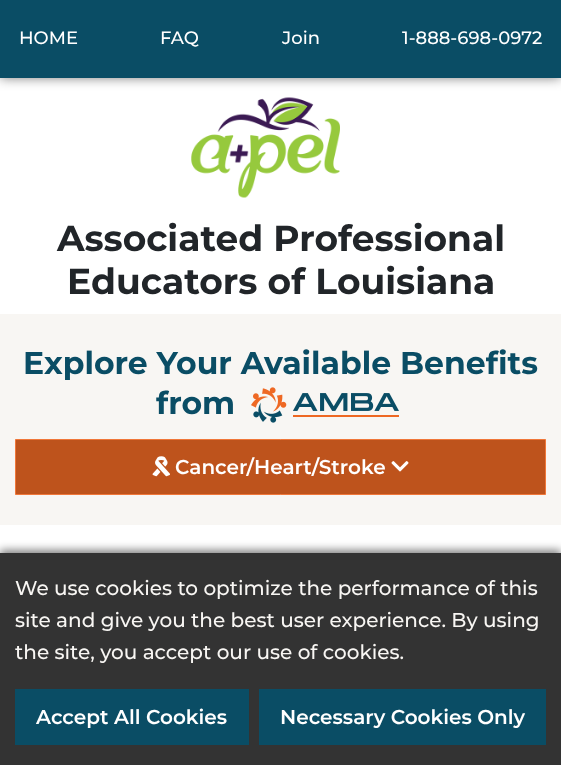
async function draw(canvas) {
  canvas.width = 561;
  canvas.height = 765;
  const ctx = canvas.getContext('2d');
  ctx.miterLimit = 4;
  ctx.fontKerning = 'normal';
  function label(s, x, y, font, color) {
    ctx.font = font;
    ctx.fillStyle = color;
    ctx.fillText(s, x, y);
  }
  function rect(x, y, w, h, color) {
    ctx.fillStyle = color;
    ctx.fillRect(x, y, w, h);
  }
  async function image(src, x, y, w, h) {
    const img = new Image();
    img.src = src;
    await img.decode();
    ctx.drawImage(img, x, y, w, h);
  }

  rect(0, 0, 561, 765, '#fff');
  ctx.fillStyle = '#00000080';
  ctx.filter = 'blur(6px)';
  ctx.beginPath();
  ctx.rect(0, 0, 561, 78);
  ctx.fill();
  ctx.filter = 'none';
  rect(0, 0, 561, 78, '#0a4d65');
  label('HOME', 19, 44, '500 18px Montserrat', '#fff');
  label('FAQ', 160, 44, '500 18px Montserrat', '#fff');
  label('Join', 282, 44, '500 18px Montserrat', '#fff');
  label('1-888-698-0972', 402, 44, '500 18px Montserrat', '#fff');
  await image('assets/img1.png', 191, 97, 149, 101);
  label('Associated Professional', 57, 251, 'bold 36px Montserrat', '#212529');
  label('Educators of Louisiana', 67, 294, 'bold 36px Montserrat', '#212529');
  rect(0, 314, 561, 211, '#f8f6f3');
  label('Explore Your Available Benefits', 23, 374, 'bold 31.5px Montserrat', '#0a4d65');
  label('from', 156, 414, 'bold 31.5px Montserrat', '#0a4d65');
  await image('assets/img2.png', 251, 387, 148, 36);
  ctx.fillStyle = '#be531c';
  ctx.beginPath();
  ctx.rect(15.5, 439.5, 530, 55);
  ctx.fill();
  ctx.strokeStyle = '#f07739';
  ctx.stroke();
  await image('assets/img3.png', 152, 456, 18, 21);
  label('Cancer/Heart/Stroke', 175, 474, '600 20px Montserrat', '#fff');
  await image('assets/img4.png', 391, 461, 18, 11);
  ctx.fillStyle = '#00000080';
  ctx.filter = 'blur(4px)';
  ctx.beginPath();
  ctx.rect(0, 550, 561, 213);
  ctx.fill();
  ctx.filter = 'none';
  rect(0, 553, 561, 212, '#333');
  label('We use cookies to optimize the performance of this', 15, 595, '500 20px Montserrat', '#f8f6f3');
  label('site and give you the best user experience. By using', 15, 627, '500 20px Montserrat', '#f8f6f3');
  label('the site, you accept our use of cookies.', 15, 659, '500 20px Montserrat', '#f8f6f3');
  rect(15, 689, 234, 56, '#0a4d65');
  label('Accept All Cookies', 36, 724, '600 20px Montserrat', '#fff');
  rect(259, 689, 287, 56, '#0a4d65');
  label('Necessary Cookies Only', 280, 724, '600 20px Montserrat', '#fff');
}

draw(document.querySelector('canvas'));
